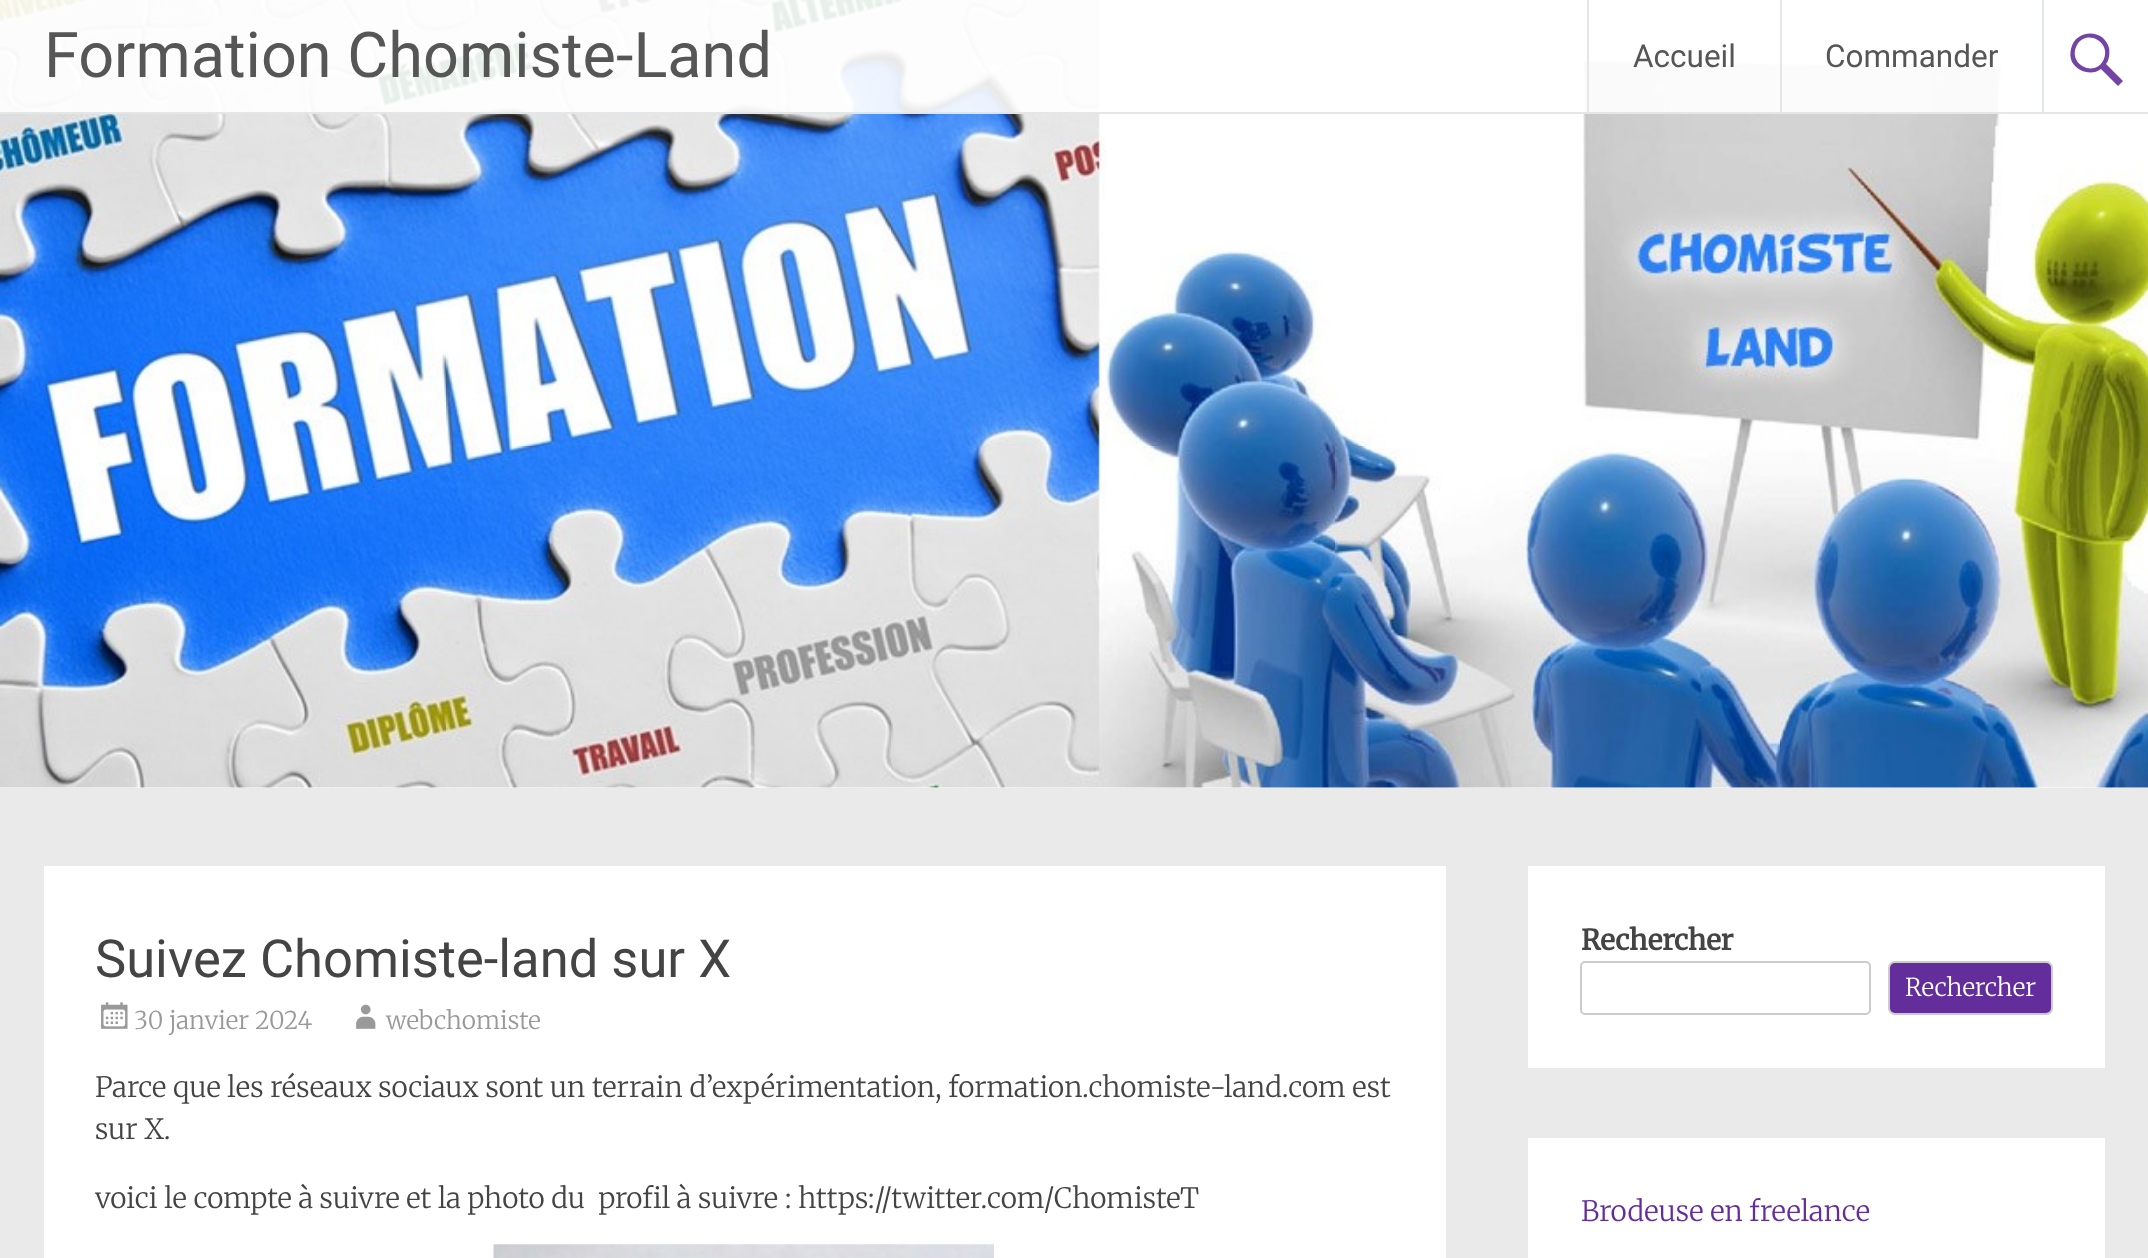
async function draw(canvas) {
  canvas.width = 2148;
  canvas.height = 1258;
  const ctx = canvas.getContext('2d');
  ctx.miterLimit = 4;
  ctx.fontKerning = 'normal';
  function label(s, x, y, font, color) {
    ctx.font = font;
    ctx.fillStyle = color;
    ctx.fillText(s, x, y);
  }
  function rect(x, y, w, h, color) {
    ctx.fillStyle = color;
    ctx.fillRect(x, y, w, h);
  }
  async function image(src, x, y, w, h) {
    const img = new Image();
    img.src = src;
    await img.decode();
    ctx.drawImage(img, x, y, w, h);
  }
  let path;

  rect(0, 0, 2148, 1258, '#fff');
  await image('assets/img1.png', 0, 0, 2148, 788);
  rect(0, 0, 2003, 114, '#ffffffe6');
  rect(0, 112, 2148, 2, '#e1e4e6e6');
  label('Formation Chomiste-Land', 44, 77, '63px Roboto', '#565656');
  rect(1587, 0, 2, 112, '#e1e4e6e6');
  label('Accueil', 1633, 67, '31.5px Roboto', '#565656');
  rect(1780, 0, 2, 112, '#e1e4e6e6');
  label('Commander', 1825, 67, '31.5px Roboto', '#565656');
  rect(2042, 0, 2, 112, '#e4e7e9');
  ctx.fillStyle = '#7343a5';
  path = new Path2D('M2123 81L2118 86L2101 69C2092 76 2078 72 2072 62C2070 58 2070 53 2071 49C2075 29 2104 28 2109 48C2110 54 2109 60 2106 64ZM2077 45C2067 63 2093 78 2103 61C2113 43 2087 28 2077 45Z');
  ctx.fill(path);
  rect(0, 788, 2148, 470, '#eaeaea');
  rect(44, 866, 1402, 392, '#fff');
  label('Suivez Chomiste-land sur X', 95, 977, '52.5px Roboto', '#444');
  await image('assets/img2.png', 101, 1002, 27, 27);
  label('30 janvier 2024', 134, 1029, '300 24.5px Merriweather', '#999');
  await image('assets/img3.png', 356, 1004, 20, 25);
  label('webchomiste', 386, 1029, '300 24.5px Merriweather', '#999');
  label('Parce que les réseaux sociaux sont un terrain d’expérimentation, formation.chomiste-land.com est', 95, 1097, '300 28px Merriweather', '#444');
  label('sur X.', 95, 1139, '300 28px Merriweather', '#444');
  label('voici le compte à suivre et la photo du  profil à suivre : https://twitter.com/ChomisteT', 95, 1208, '300 28px Merriweather', '#444');
  await image('assets/img4.png', 493, 1244, 501, 14);
  rect(1528, 866, 577, 202, '#fff');
  label('Rechercher', 1581, 950, 'bold 28px Merriweather', '#444');
  ctx.beginPath();
  ctx.roundRect(1581, 962, 289, 52, 4);
  ctx.strokeStyle = '#ccc';
  ctx.lineWidth = 2;
  ctx.stroke();
  ctx.fillStyle = '#632e9b';
  ctx.beginPath();
  ctx.roundRect(1889, 962, 163, 52, 6);
  ctx.fill();
  ctx.stroke();
  label('Rechercher', 1905, 996, '300 24.5px Merriweather', '#fff');
  rect(1528, 1138, 577, 120, '#fff');
  label('Brodeuse en freelance', 1581, 1221, '300 28px Merriweather', '#632e9b');
}

draw(document.querySelector('canvas'));
